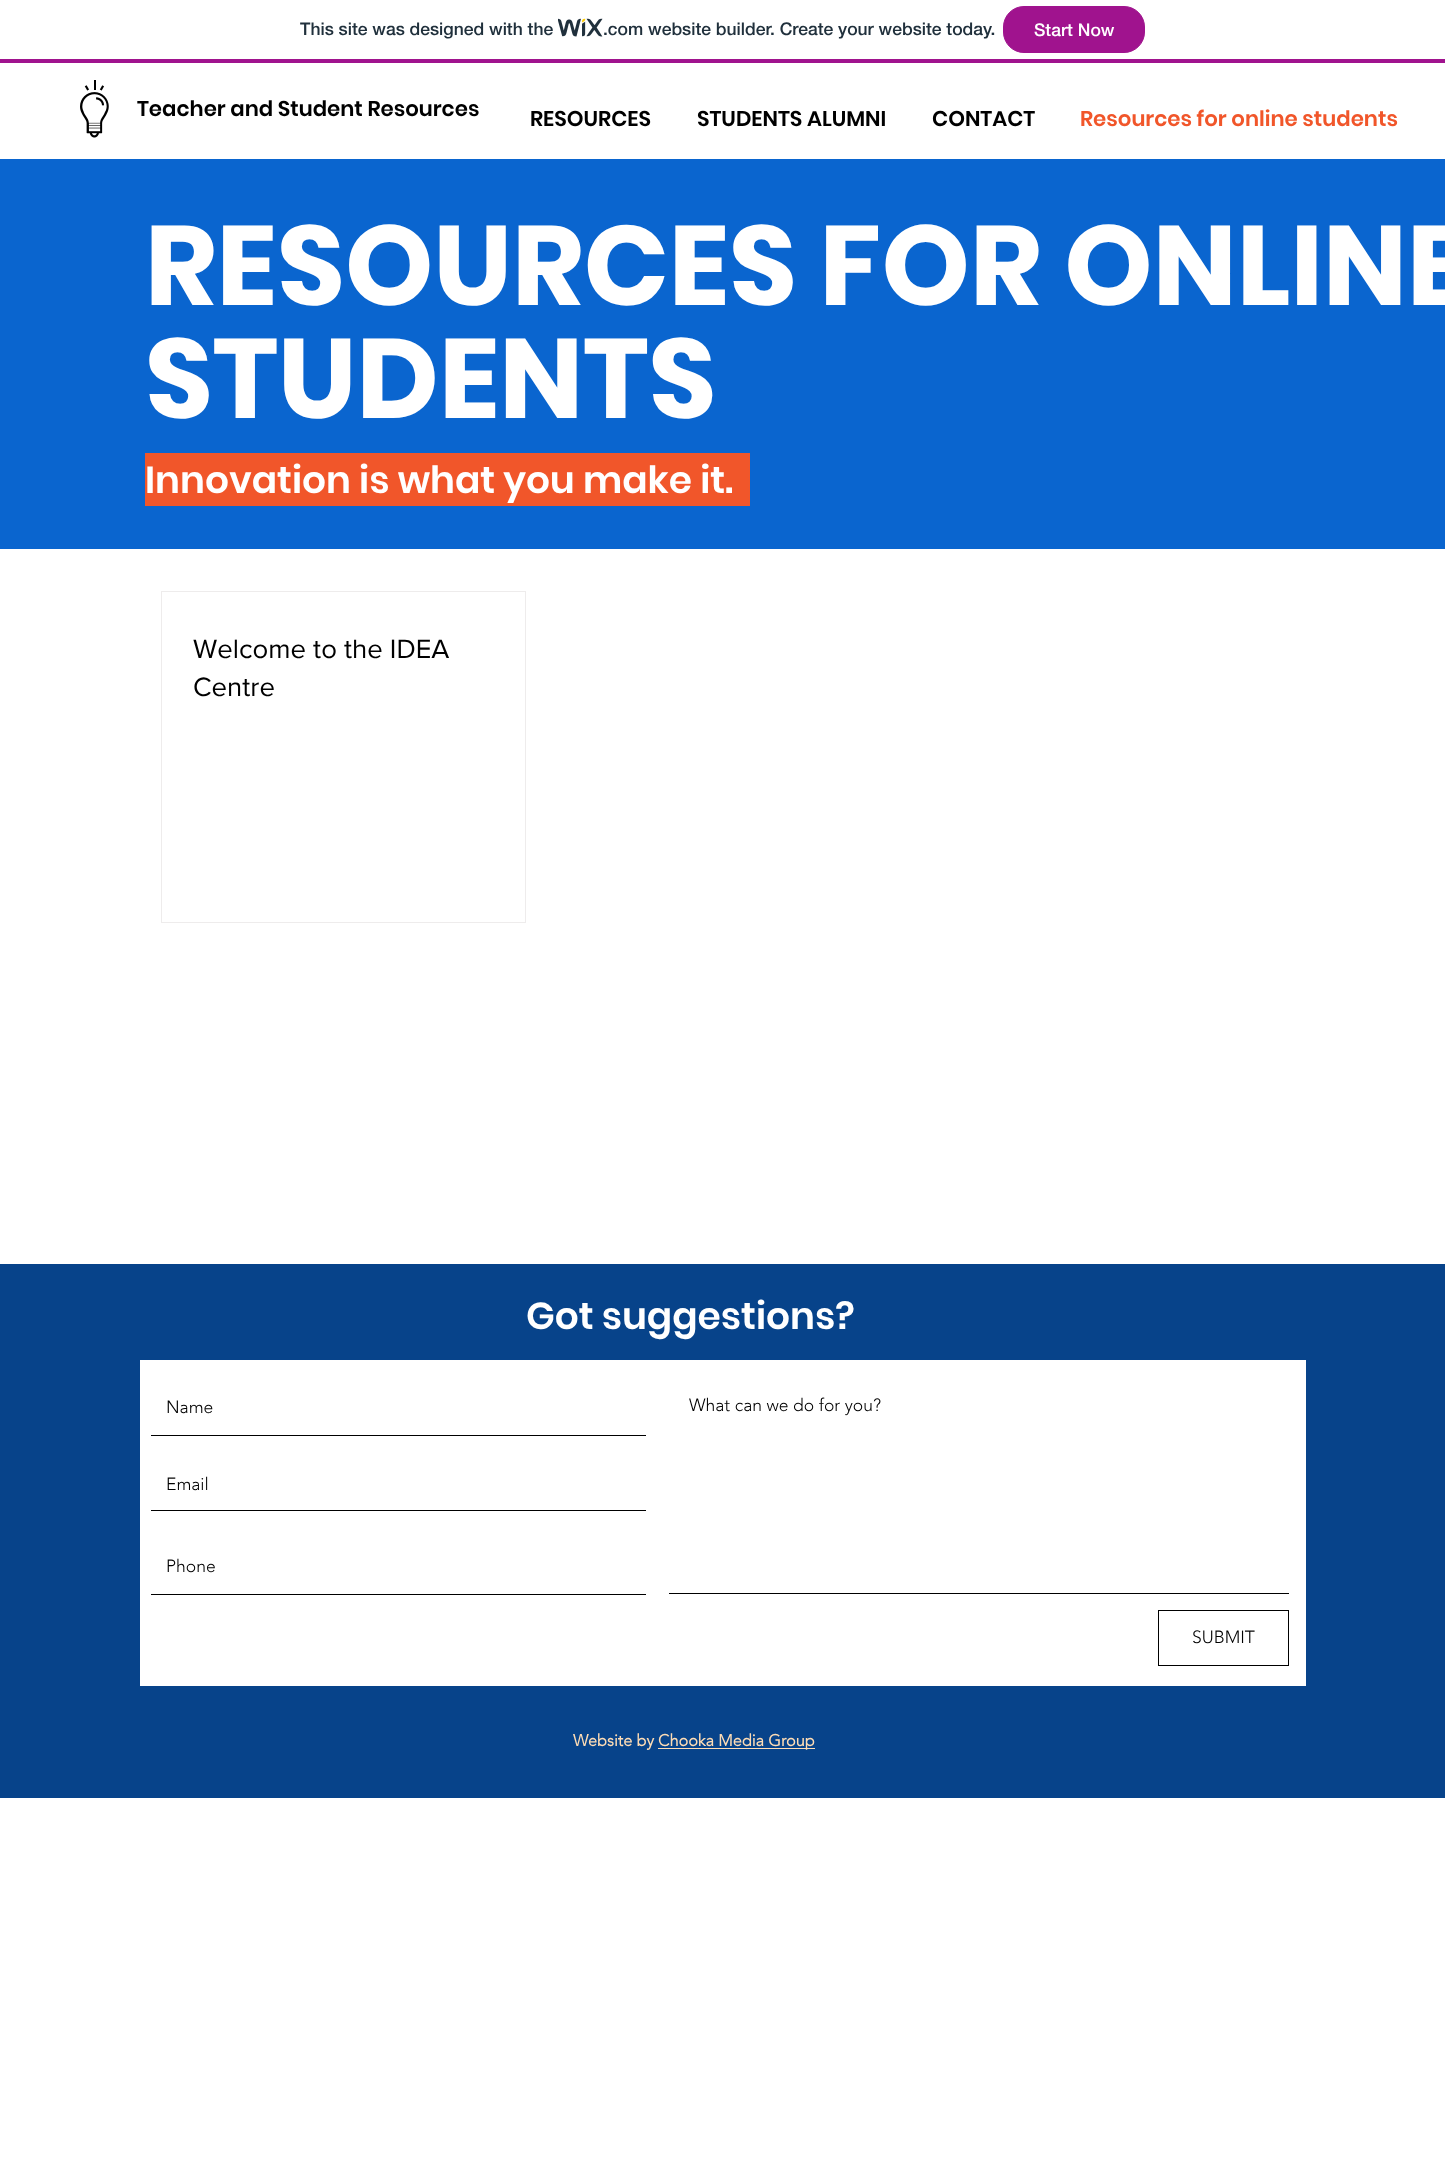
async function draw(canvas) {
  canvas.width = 1445;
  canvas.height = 2174;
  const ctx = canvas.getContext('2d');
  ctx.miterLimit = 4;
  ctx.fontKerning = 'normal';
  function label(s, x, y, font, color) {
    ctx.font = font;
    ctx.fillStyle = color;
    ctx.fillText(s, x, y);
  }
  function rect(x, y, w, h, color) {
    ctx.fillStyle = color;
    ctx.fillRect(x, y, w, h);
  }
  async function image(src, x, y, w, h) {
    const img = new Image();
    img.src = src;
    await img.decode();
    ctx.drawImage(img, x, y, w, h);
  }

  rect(0, 0, 1445, 2174, '#fff');
  rect(0, 59, 1445, 4, '#a0138e');
  label('This site was designed with the', 300, 35, '500 17.5px "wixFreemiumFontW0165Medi"', '#20303c');
  await image('assets/img1.png', 558, 18, 45, 19);
  label('.com website builder. Create your website today.', 603, 35, '500 17.5px "wixFreemiumFontW0165Medi"', '#20303c');
  ctx.fillStyle = '#a0138e';
  ctx.beginPath();
  ctx.roundRect(1003.5, 6.5, 141, 46, 20.5);
  ctx.fill();
  ctx.strokeStyle = '#a0138e';
  ctx.stroke();
  label('Start Now', 1034, 36, '500 17.5px "wixFreemiumFontW0165Medi"', '#fff');
  await image('assets/img2.png', 80, 80, 29, 58);
  label('Teacher and Student Resources', 137, 116, '600 21.25px Poppins', '#000');
  label('RESOURCES', 530, 126, '600 21.25px Poppins', '#000');
  label('STUDENTS ALUMNI', 697, 126, '600 21.25px Poppins', '#000');
  label('CONTACT', 932, 126, '600 21.25px Poppins', '#000');
  label('Resources for online students', 1080, 126, '600 21.25px Poppins', '#f1562a');
  rect(0, 159, 1445, 390, '#0a65cf');
  label('RESOURCES FOR ONLINE', 145, 305, 'bold 112.5px Poppins', '#fff');
  label('STUDENTS', 145, 418, 'bold 112.5px Poppins', '#fff');
  rect(145, 453, 605, 53, '#f1562a');
  label('Innovation is what you make it.', 145, 493, '600 37.5px Poppins', '#fff');
  ctx.strokeStyle = '#eeecec';
  ctx.strokeRect(161.5, 591.5, 364, 331);
  label('Welcome to the IDEA', 193, 658, '27.5px "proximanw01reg"', '#000');
  label('Centre', 193, 696, '27.5px "proximanw01reg"', '#000');
  rect(0, 1264, 1445, 534, '#07438a');
  label('Got suggestions?', 526, 1329, '600 37.5px Poppins', '#fff');
  rect(140, 1360, 1166, 326, '#fff');
  rect(151, 1435, 495, 1, '#000');
  label('Name', 166, 1413, '300 17.5px "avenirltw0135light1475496"', '#000');
  rect(669, 1593, 620, 1, '#000');
  label('What can we do for you?', 689, 1411, '300 17.5px "avenirltw0135light1475496"', '#000');
  rect(151, 1510, 495, 1, '#000');
  label('Email', 166, 1490, '300 17.5px "avenirltw0135light1475496"', '#000');
  rect(151, 1594, 495, 1, '#000');
  label('Phone', 166, 1572, '300 17.5px "avenirltw0135light1475496"', '#000');
  ctx.strokeStyle = '#000';
  ctx.strokeRect(1158.5, 1610.5, 130, 55);
  label('SUBMIT', 1192, 1643, '300 17.5px "avenirltw0135light1475496"', '#000');
  label('Website by', 573, 1746, 'bold 16.25px "avenirltw0135light1475496"', '#fddcb5');
  rect(658, 1748, 157, 1, '#fddcb5');
  label('Chooka Media Group', 658, 1746, 'bold 16.25px "avenirltw0135light1475496"', '#fddcb5');
}

draw(document.querySelector('canvas'));
